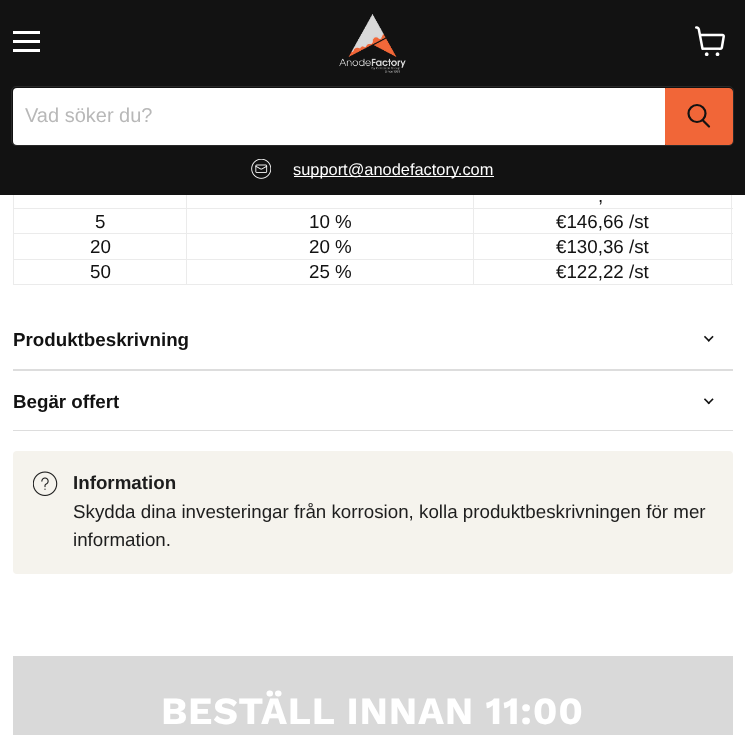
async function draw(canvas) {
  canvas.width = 745;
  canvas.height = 735;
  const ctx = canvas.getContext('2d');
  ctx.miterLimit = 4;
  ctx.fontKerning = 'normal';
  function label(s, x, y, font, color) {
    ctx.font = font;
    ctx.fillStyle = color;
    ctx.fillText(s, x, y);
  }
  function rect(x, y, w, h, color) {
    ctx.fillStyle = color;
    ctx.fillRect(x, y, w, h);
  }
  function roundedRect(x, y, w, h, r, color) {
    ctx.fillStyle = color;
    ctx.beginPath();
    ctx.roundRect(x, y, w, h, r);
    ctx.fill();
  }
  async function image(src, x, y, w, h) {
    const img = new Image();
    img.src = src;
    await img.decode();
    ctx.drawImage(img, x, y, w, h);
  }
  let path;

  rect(0, 0, 745, 735, '#fff');
  rect(0, 0, 745, 195, '#121212');
  rect(13, 31, 27, 3, '#fff');
  rect(13, 40, 27, 3, '#fff');
  rect(13, 49, 27, 3, '#fff');
  await image('assets/img1.png', 695, 26, 30, 30);
  await image('assets/img2.png', 339, 14, 67, 59);
  ctx.beginPath();
  ctx.roundRect(11.5, 86.5, 722, 59, 4.5);
  ctx.strokeStyle = '#80808033';
  ctx.stroke();
  ctx.beginPath();
  ctx.roundRect(13, 88, 652, 57, [4, 0, 0, 4]);
  ctx.fill();
  label('Vad söker du?', 25, 122, '20px Liberation Sans', '#b8b8b8');
  ctx.fillStyle = '#f16638';
  ctx.beginPath();
  ctx.roundRect(665.5, 88.5, 67, 56, [0, 3.5, 3.5, 0]);
  ctx.fill();
  ctx.strokeStyle = '#f16638';
  ctx.stroke();
  path = new Path2D('M709 126.5L703 120.5');
  ctx.strokeStyle = '#121212';
  ctx.lineWidth = 2.2;
  ctx.lineCap = 'round';
  ctx.stroke(path);
  ctx.beginPath();
  ctx.arc(697, 113.5, 8.5, 0, 2 * Math.PI);
  ctx.stroke();
  await image('assets/img3.png', 251, 159, 20, 20);
  rect(294, 176, 200, 1, '#fff');
  label('support@anodefactory.com', 293, 175, '16.4px Liberation Sans', '#fff');
  rect(473, 208, 260, 1, '#ebebeb');
  rect(473, 233, 260, 1, '#ebebeb');
  rect(473, 259, 260, 1, '#ebebeb');
  rect(731, 259, 1, 26, '#ebebeb');
  rect(473, 284, 260, 1, '#ebebeb');
  rect(473, 259, 1, 26, '#ebebeb');
  rect(186, 259, 288, 1, '#ebebeb');
  rect(473, 233, 1, 27, '#ebebeb');
  rect(186, 233, 288, 1, '#ebebeb');
  rect(473, 208, 1, 26, '#ebebeb');
  rect(186, 208, 288, 1, '#ebebeb');
  rect(186, 284, 288, 1, '#ebebeb');
  rect(186, 259, 1, 26, '#ebebeb');
  rect(13, 259, 175, 1, '#ebebeb');
  rect(186, 233, 1, 27, '#ebebeb');
  rect(13, 233, 175, 1, '#ebebeb');
  rect(186, 208, 1, 26, '#ebebeb');
  rect(13, 208, 175, 1, '#ebebeb');
  rect(186, 195, 1, 14, '#ebebeb');
  rect(473, 195, 1, 14, '#ebebeb');
  label(',', 598, 202, '18.75px Liberation Sans', '#121212');
  rect(13, 284, 175, 1, '#ebebeb');
  rect(13, 259, 1, 26, '#ebebeb');
  rect(13, 233, 1, 27, '#ebebeb');
  rect(13, 195, 1, 39, '#ebebeb');
  label('5', 95, 228, '18.75px Liberation Sans', '#121212');
  label('10 %', 309, 228, '18.75px Liberation Sans', '#121212');
  rect(731, 233, 1, 27, '#ebebeb');
  rect(731, 195, 1, 39, '#ebebeb');
  label('€146,66 /st', 556, 228, '18.75px Liberation Sans', '#121212');
  label('20', 90, 253, '18.75px Liberation Sans', '#121212');
  label('20 %', 309, 253, '18.75px Liberation Sans', '#121212');
  label('€130,36 /st', 556, 253, '18.75px Liberation Sans', '#121212');
  label('50', 90, 278, '18.75px Liberation Sans', '#121212');
  label('25 %', 309, 278, '18.75px Liberation Sans', '#121212');
  label('€122,22 /st', 556, 278, '18.75px Liberation Sans', '#121212');
  rect(13, 369, 720, 2, '#ddd');
  label('Produktbeskrivning', 13, 346, 'bold 18.75px Liberation Sans', '#121212');
  await image('assets/img4.png', 704, 335, 10, 7);
  rect(13, 430, 720, 1, '#ddd');
  label('Begär offert', 13, 408, 'bold 18.75px Liberation Sans', '#121212');
  await image('assets/img5.png', 704, 398, 10, 7);
  roundedRect(13, 451, 720, 123, 4, '#f5f3ed');
  await image('assets/img6.png', 33, 471, 25, 25);
  label('Information', 73, 489, 'bold 18.75px Liberation Sans', '#1d1d1d');
  label('Skydda dina investeringar från korrosion, kolla produktbeskrivningen för mer', 73, 518, '18.75px Liberation Sans', '#1d1d1d');
  label('information.', 73, 546, '18.75px Liberation Sans', '#1d1d1d');
  rect(13, 656, 720, 79, '#d9d9d9');
  ctx.letterSpacing = '0.75px';
  label('BESTÄLL INNAN 11:00', 161, 724, 'bold 38.5px Work Sans', '#fff');
}

draw(document.querySelector('canvas'));
